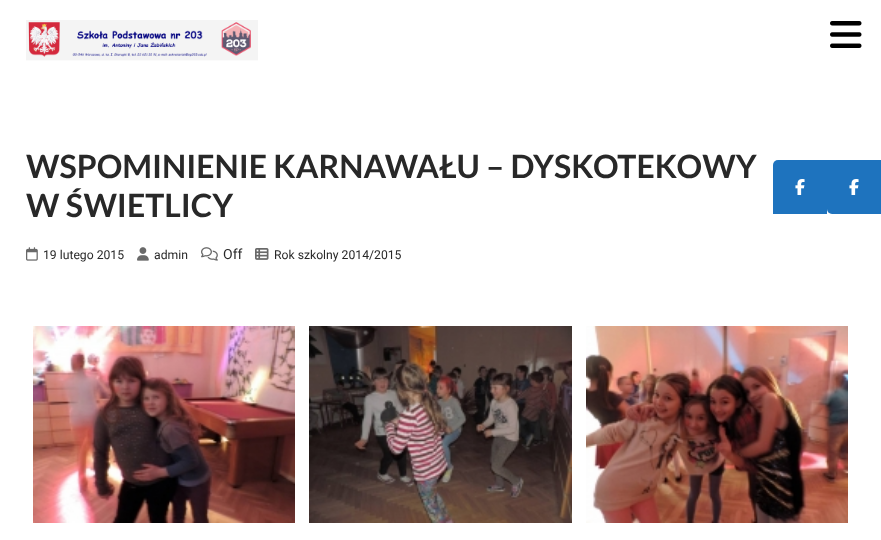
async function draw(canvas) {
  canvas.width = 881;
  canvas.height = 540;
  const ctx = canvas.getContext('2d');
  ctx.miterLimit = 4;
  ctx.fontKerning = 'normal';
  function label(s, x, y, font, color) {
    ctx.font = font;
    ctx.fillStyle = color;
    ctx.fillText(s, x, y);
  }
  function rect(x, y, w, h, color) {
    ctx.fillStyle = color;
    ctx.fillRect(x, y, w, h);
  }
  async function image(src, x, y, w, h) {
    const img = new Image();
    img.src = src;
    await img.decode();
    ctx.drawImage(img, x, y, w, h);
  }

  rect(0, 0, 881, 540, '#fff');
  await image('assets/img1.png', 26, 20, 232, 41);
  await image('assets/img2.png', 830, 21, 32, 27);
  label('WSPOMINIENIE KARNAWAŁU – DYSKOTEKOWY', 26, 178, 'bold 32px Lato', '#282828');
  label('W ŚWIETLICY', 26, 217, 'bold 32px Lato', '#282828');
  await image('assets/img3.png', 26, 247, 12, 14);
  label('19 lutego 2015', 43, 259, '12.2px Roboto', '#282828');
  await image('assets/img4.png', 137, 247, 12, 14);
  label('admin', 154, 259, '12.2px Roboto', '#282828');
  await image('assets/img5.png', 201, 247, 17, 14);
  label('Off', 223, 259, '14px Roboto', '#282828');
  await image('assets/img6.png', 255, 248, 14, 12);
  label('Rok szkolny 2014/2015', 274, 259, '12.2px Roboto', '#282828');
  await image('assets/img7.png', 33, 326, 262, 197);
  await image('assets/img8.png', 309, 326, 263, 197);
  await image('assets/img9.png', 586, 326, 262, 197);
  ctx.fillStyle = '#1e73be';
  ctx.beginPath();
  ctx.roundRect(773, 160, 54, 54, [5, 0, 0, 0]);
  ctx.fill();
  await image('assets/img10.png', 795, 179, 10, 16);
  ctx.beginPath();
  ctx.roundRect(827, 160, 54, 54, [0, 0, 0, 5]);
  ctx.fill();
  await image('assets/img10.png', 849, 179, 10, 16);
}

draw(document.querySelector('canvas'));
